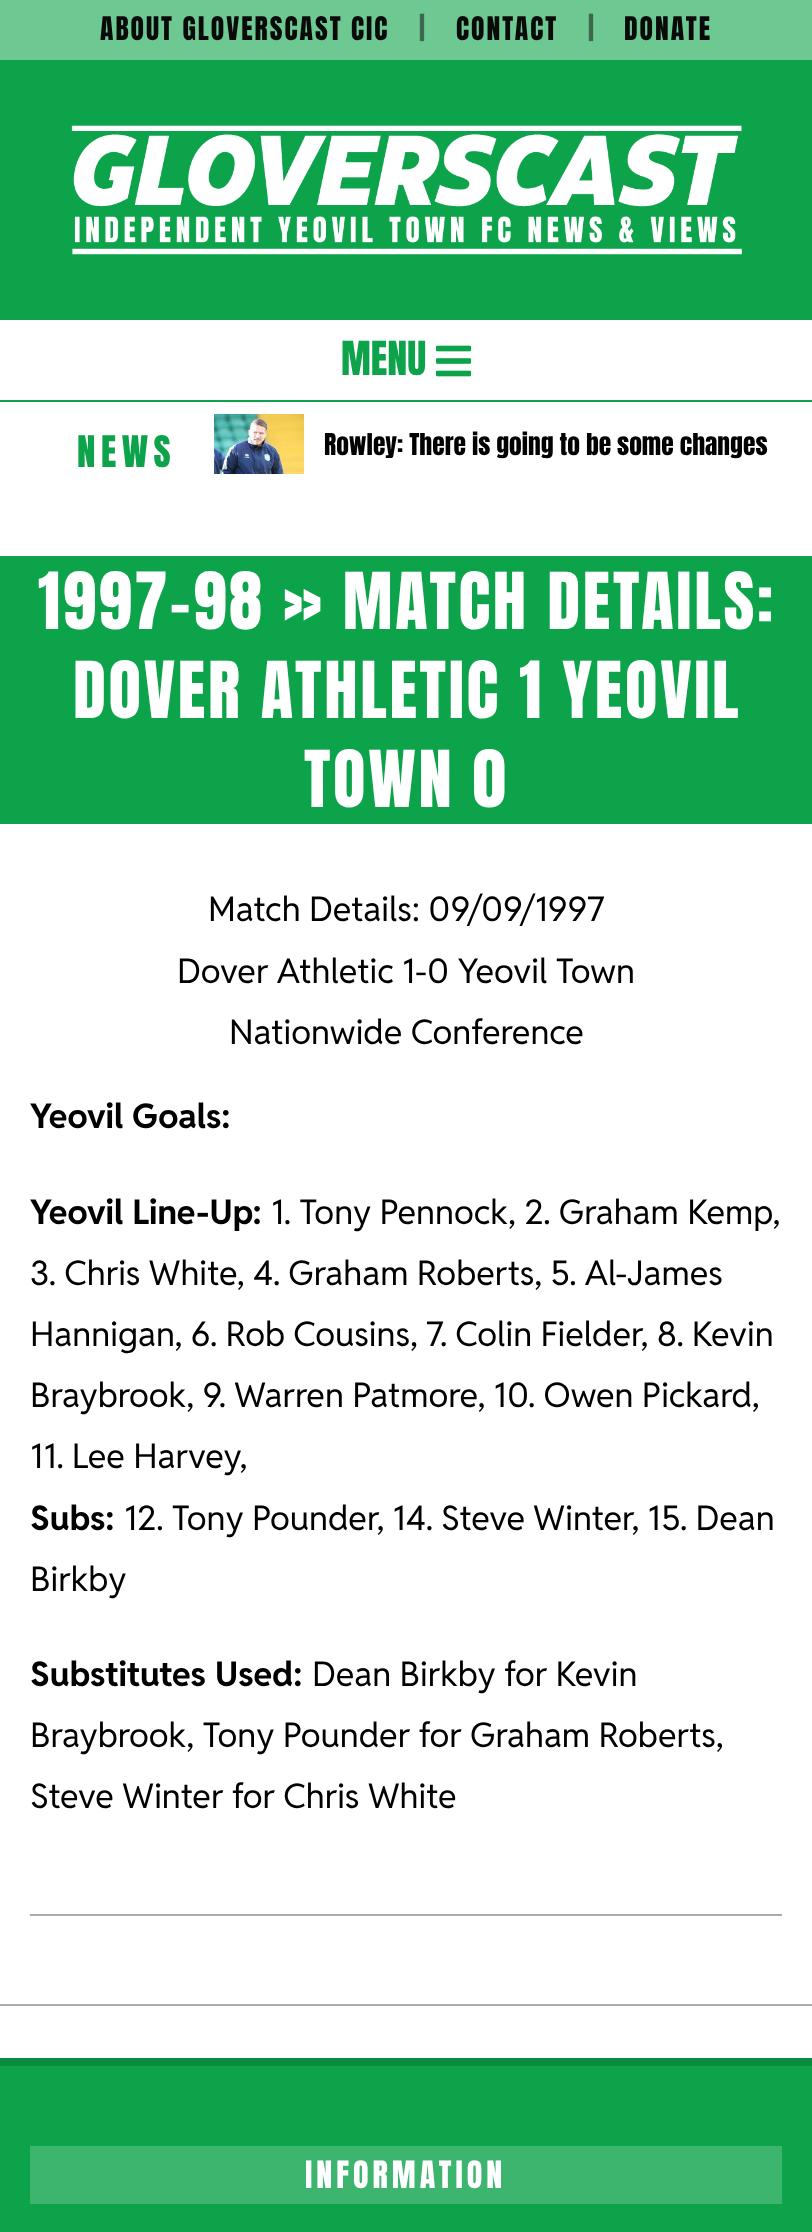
async function draw(canvas) {
  canvas.width = 812;
  canvas.height = 2232;
  const ctx = canvas.getContext('2d');
  ctx.miterLimit = 4;
  ctx.fontKerning = 'normal';
  function label(s, x, y, font, color) {
    ctx.font = font;
    ctx.fillStyle = color;
    ctx.fillText(s, x, y);
  }
  function rect(x, y, w, h, color) {
    ctx.fillStyle = color;
    ctx.fillRect(x, y, w, h);
  }
  async function image(src, x, y, w, h) {
    const img = new Image();
    img.src = src;
    await img.decode();
    ctx.drawImage(img, x, y, w, h);
  }

  rect(0, 0, 812, 2232, '#fff');
  rect(0, 0, 812, 60, '#6dc892');
  ctx.letterSpacing = '2px';
  label('ABOUT GLOVERSCAST CIC', 100, 40, '27.6px Anton', '#0a0a0a');
  ctx.letterSpacing = '0px';
  label('|', 419, 40, '27.6px Anton', '#3c694e');
  ctx.letterSpacing = '2px';
  label('CONTACT', 456, 40, '27.6px Anton', '#0a0a0a');
  ctx.letterSpacing = '0px';
  label('|', 588, 40, '27.6px Anton', '#3c694e');
  ctx.letterSpacing = '2px';
  label('DONATE', 624, 40, '27.6px Anton', '#0a0a0a');
  rect(0, 60, 812, 260, '#0ca34a');
  await image('assets/img1.png', 71, 125, 671, 130);
  rect(0, 400, 812, 2, '#0ca34a');
  ctx.letterSpacing = '0px';
  label('MENU', 341, 375, '40px Anton', '#0ca34a');
  await image('assets/img2.png', 436, 345, 35, 32);
  ctx.letterSpacing = '5.5px';
  label('NEWS', 77, 467, '37px Anton', '#0ca34a');
  await image('assets/img3.png', 214, 414, 90, 60);
  ctx.letterSpacing = '0px';
  label('Rowley: There is going to be some changes', 324, 455, '25.5px Anton', '#000');
  rect(0, 556, 812, 268, '#0ca34a');
  ctx.letterSpacing = '2.7px';
  label('1997-98 » MATCH DETAILS:', 38, 629, '66.75px Anton', '#fff');
  label('DOVER ATHLETIC 1 YEOVIL', 73, 718, '66.75px Anton', '#fff');
  label('TOWN 0', 304, 807, '66.75px Anton', '#fff');
  rect(30, 1914, 752, 2, '#ababab');
  ctx.letterSpacing = '0px';
  label('Match Details: 09/09/1997', 208, 921, '34px Reddit Sans', '#000');
  label('Dover Athletic 1-0 Yeovil Town', 177, 983, '34px Reddit Sans', '#000');
  label('Nationwide Conference', 229, 1044, '34px Reddit Sans', '#000');
  label('Yeovil Goals:', 30, 1128, 'bold 34px Reddit Sans', '#000');
  label('Yeovil Line-Up:', 30, 1224, 'bold 34px Reddit Sans', '#000');
  label('1. Tony Pennock, 2. Graham Kemp,', 271, 1224, '34px Reddit Sans', '#000');
  label('3. Chris White, 4. Graham Roberts, 5. Al-James', 30, 1285, '34px Reddit Sans', '#000');
  label('Hannigan, 6. Rob Cousins, 7. Colin Fielder, 8. Kevin', 30, 1346, '34px Reddit Sans', '#000');
  label('Braybrook, 9. Warren Patmore, 10. Owen Pickard,', 30, 1407, '34px Reddit Sans', '#000');
  label('11. Lee Harvey,', 30, 1468, '34px Reddit Sans', '#000');
  label('Subs:', 30, 1530, 'bold 34px Reddit Sans', '#000');
  label('12. Tony Pounder, 14. Steve Winter, 15. Dean', 124, 1530, '34px Reddit Sans', '#000');
  label('Birkby', 30, 1591, '34px Reddit Sans', '#000');
  label('Substitutes Used:', 30, 1686, 'bold 34px Reddit Sans', '#000');
  label('Dean Birkby for Kevin', 312, 1686, '34px Reddit Sans', '#000');
  label('Braybrook, Tony Pounder for Graham Roberts,', 30, 1747, '34px Reddit Sans', '#000');
  label('Steve Winter for Chris White', 30, 1808, '34px Reddit Sans', '#000');
  rect(0, 2004, 812, 2, '#ababab');
  rect(0, 2066, 812, 166, '#0ca34a');
  rect(0, 2058, 812, 8, '#0a8c40');
  rect(30, 2146, 752, 58, '#3db56e');
  ctx.letterSpacing = '4px';
  label('INFORMATION', 305, 2188, '32px Anton', '#fff');
}

draw(document.querySelector('canvas'));
